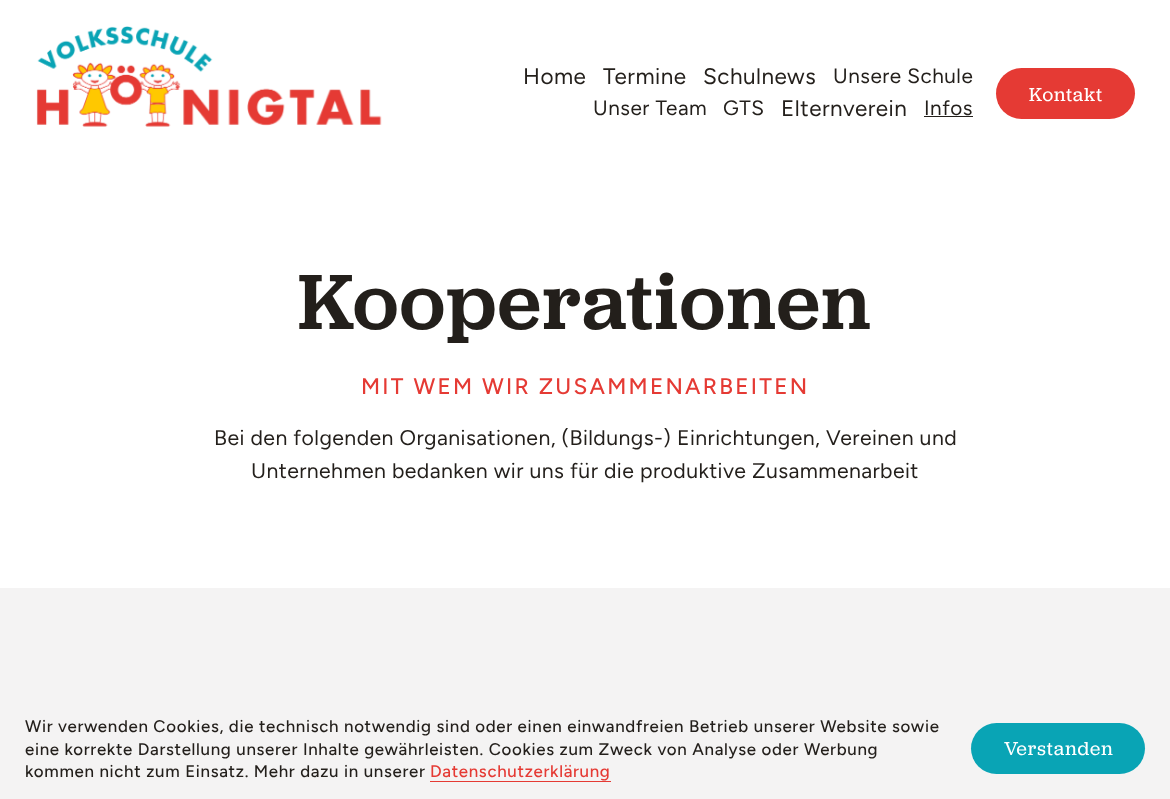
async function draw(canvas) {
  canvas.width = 1170;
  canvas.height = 799;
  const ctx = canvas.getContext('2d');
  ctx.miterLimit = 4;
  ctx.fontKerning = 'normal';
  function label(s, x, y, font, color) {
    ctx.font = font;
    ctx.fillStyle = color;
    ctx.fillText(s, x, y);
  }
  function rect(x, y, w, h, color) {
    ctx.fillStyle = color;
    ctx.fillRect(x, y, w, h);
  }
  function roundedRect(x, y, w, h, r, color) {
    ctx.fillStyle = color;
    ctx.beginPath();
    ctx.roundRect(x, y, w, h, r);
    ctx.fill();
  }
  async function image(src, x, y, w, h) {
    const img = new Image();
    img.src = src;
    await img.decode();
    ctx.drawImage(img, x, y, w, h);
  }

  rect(0, 0, 1170, 799, '#fff');
  await image('assets/img1.png', 36, 26, 346, 101);
  ctx.letterSpacing = '0.5px';
  label('Home', 523, 84, '22.5px Figtree', '#231f1b');
  label('Termine', 603, 84, '22.5px Figtree', '#231f1b');
  label('Schulnews', 703, 84, '22.5px Figtree', '#231f1b');
  label('Unsere Schule', 833, 83, '20.75px Figtree', '#231f1b');
  label('Unser Team', 593, 115, '20.75px Figtree', '#231f1b');
  label('GTS', 723, 115, '20.75px Figtree', '#231f1b');
  label('Elternverein', 781, 116, '22.5px Figtree', '#231f1b');
  rect(924, 116, 49, 1, '#231f1b');
  label('Infos', 924, 115, '20.75px Figtree', '#231f1b');
  roundedRect(996, 68, 139, 51, 25.5, '#e53a34');
  ctx.letterSpacing = '1px';
  label('Kontakt', 1029, 101, '19.5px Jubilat', '#fff');
  ctx.letterSpacing = '1.6px';
  label('Kooperationen', 298, 329, '500 81.25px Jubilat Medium', '#231f1b');
  ctx.letterSpacing = '2.25px';
  label('MIT WEM WIR ZUSAMMENARBEITEN', 361, 394, '500 22.5px Figtree', '#e53a34');
  ctx.letterSpacing = '0.43px';
  label('Bei den folgenden Organisationen, (Bildungs-) Einrichtungen, Vereinen und', 214, 445, '21.25px Figtree', '#231f1b');
  label('Unternehmen bedanken wir uns für die produktive Zusammenarbeit', 251, 478, '21.25px Figtree', '#231f1b');
  rect(0, 588, 1170, 211, '#f4f3f3');
  ctx.letterSpacing = '0.68px';
  label('Wir verwenden Cookies, die technisch notwendig sind oder einen einwandfreien Betrieb unserer Website sowie', 25, 732, '500 16.88px "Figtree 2"', '#231f1b');
  label('eine korrekte Darstellung unserer Inhalte gewährleisten. Cookies zum Zweck von Analyse oder Werbung', 25, 755, '500 16.88px "Figtree 2"', '#231f1b');
  label('kommen nicht zum Einsatz. Mehr dazu in unserer', 25, 777, '500 16.88px "Figtree 2"', '#231f1b');
  label('Datenschutzerklärung', 430, 777, '500 16.88px "Figtree 2"', '#e53a34');
  rect(430, 781, 181, 1, '#e53a34');
  roundedRect(971, 723, 174, 51, 25.5, '#09a4b5');
  ctx.letterSpacing = '1px';
  label('Verstanden', 1004, 755, '19.5px Jubilat', '#fff');
}

draw(document.querySelector('canvas'));
